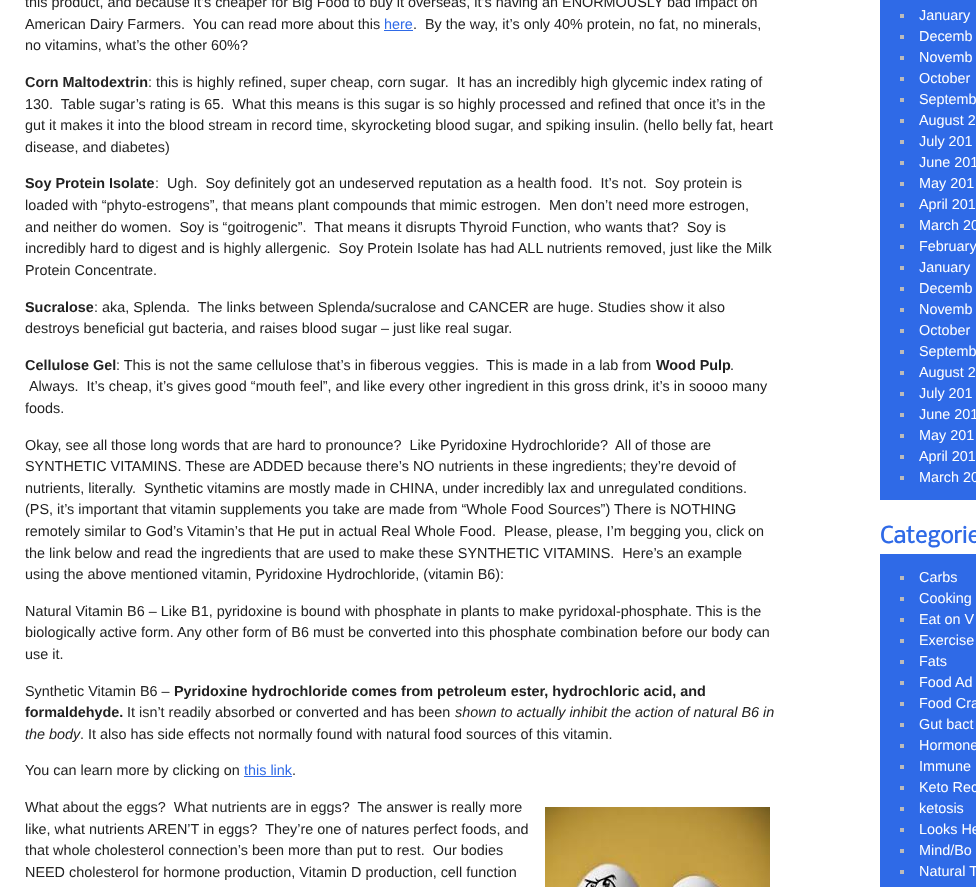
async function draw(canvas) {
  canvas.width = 976;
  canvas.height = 887;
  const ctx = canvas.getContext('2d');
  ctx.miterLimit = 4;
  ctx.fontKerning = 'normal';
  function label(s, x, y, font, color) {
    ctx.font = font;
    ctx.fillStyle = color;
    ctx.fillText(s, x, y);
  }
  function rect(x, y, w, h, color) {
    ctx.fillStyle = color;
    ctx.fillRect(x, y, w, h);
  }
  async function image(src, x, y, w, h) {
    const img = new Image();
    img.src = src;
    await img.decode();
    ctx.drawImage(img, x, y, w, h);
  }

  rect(0, 0, 976, 887, '#fff');
  label('this product, and because it’s cheaper for Big Food to buy it overseas, it’s having an ENORMOUSLY bad impact on', 25, 7, '14.4px Liberation Sans', '#222');
  label('American Dairy Farmers.  You can read more about this', 25, 29, '14.4px Liberation Sans', '#222');
  label('here', 384, 29, '14.4px Liberation Sans', '#2f6ae7');
  rect(384, 30, 29, 1, '#2f6ae7');
  label('.  By the way, it’s only 40% protein, no fat, no minerals,', 413, 29, '14.4px Liberation Sans', '#222');
  label('no vitamins, what’s the other 60%?', 25, 50, '14.4px Liberation Sans', '#222');
  label('Corn Maltodextrin', 25, 87, 'bold 14.4px Liberation Sans', '#222');
  label(': this is highly refined, super cheap, corn sugar.  It has an incredibly high glycemic index rating of', 148, 87, '14.4px Liberation Sans', '#222');
  label('130.  Table sugar’s rating is 65.  What this means is this sugar is so highly processed and refined that once it’s in the', 25, 109, '14.4px Liberation Sans', '#222');
  label('gut it makes it into the blood stream in record time, skyrocketing blood sugar, and spiking insulin. (hello belly fat, heart', 25, 130, '14.4px Liberation Sans', '#222');
  label('disease, and diabetes)', 25, 152, '14.4px Liberation Sans', '#222');
  label('Soy Protein Isolate', 25, 188, 'bold 14.4px Liberation Sans', '#222');
  label(':  Ugh.  Soy definitely got an undeserved reputation as a health food.  It’s not.  Soy protein is', 155, 188, '14.4px Liberation Sans', '#222');
  label('loaded with “phyto-estrogens”, that means plant compounds that mimic estrogen.  Men don’t need more estrogen,', 25, 210, '14.4px Liberation Sans', '#222');
  label('and neither do women.  Soy is “goitrogenic”.  That means it disrupts Thyroid Function, who wants that?  Soy is', 25, 232, '14.4px Liberation Sans', '#222');
  label('incredibly hard to digest and is highly allergenic.  Soy Protein Isolate has had ALL nutrients removed, just like the Milk', 25, 253, '14.4px Liberation Sans', '#222');
  label('Protein Concentrate.', 25, 275, '14.4px Liberation Sans', '#222');
  label('Sucralose', 25, 312, 'bold 14.4px Liberation Sans', '#222');
  label(': aka, Splenda.  The links between Splenda/sucralose and CANCER are huge. Studies show it also', 94, 312, '14.4px Liberation Sans', '#222');
  label('destroys beneficial gut bacteria, and raises blood sugar – just like real sugar.', 25, 333, '14.4px Liberation Sans', '#222');
  label('Cellulose Gel', 25, 370, 'bold 14.4px Liberation Sans', '#222');
  label(': This is not the same cellulose that’s in fiberous veggies.  This is made in a lab from', 116, 370, '14.4px Liberation Sans', '#222');
  label('Wood Pulp', 656, 370, 'bold 14.4px Liberation Sans', '#222');
  label('.', 730, 370, '14.4px Liberation Sans', '#222');
  label('Always.  It’s cheap, it’s gives good “mouth feel”, and like every other ingredient in this gross drink, it’s in soooo many', 29, 391, '14.4px Liberation Sans', '#222');
  label('foods.', 25, 413, '14.4px Liberation Sans', '#222');
  label('Okay, see all those long words that are hard to pronounce?  Like Pyridoxine Hydrochloride?  All of those are', 25, 450, '14.4px Liberation Sans', '#222');
  label('SYNTHETIC VITAMINS. These are ADDED because there’s NO nutrients in these ingredients; they’re devoid of', 25, 471, '14.4px Liberation Sans', '#222');
  label('nutrients, literally.  Synthetic vitamins are mostly made in CHINA, under incredibly lax and unregulated conditions.', 25, 493, '14.4px Liberation Sans', '#222');
  label('(PS, it’s important that vitamin supplements you take are made from “Whole Food Sources”) There is NOTHING', 25, 514, '14.4px Liberation Sans', '#222');
  label('remotely similar to God’s Vitamin’s that He put in actual Real Whole Food.  Please, please, I’m begging you, click on', 25, 536, '14.4px Liberation Sans', '#222');
  label('the link below and read the ingredients that are used to make these SYNTHETIC VITAMINS.  Here’s an example', 25, 558, '14.4px Liberation Sans', '#222');
  label('using the above mentioned vitamin, Pyridoxine Hydrochloride, (vitamin B6):', 25, 579, '14.4px Liberation Sans', '#222');
  label('Natural Vitamin B6 – Like B1, pyridoxine is bound with phosphate in plants to make pyridoxal-phosphate. This is the', 25, 616, '14.4px Liberation Sans', '#222');
  label('biologically active form. Any other form of B6 must be converted into this phosphate combination before our body can', 25, 637, '14.4px Liberation Sans', '#222');
  label('use it.', 25, 659, '14.4px Liberation Sans', '#222');
  label('Synthetic Vitamin B6 –', 25, 696, '14.4px Liberation Sans', '#222');
  label('Pyridoxine hydrochloride comes from petroleum ester, hydrochloric acid, and', 174, 696, 'bold 14.4px Liberation Sans', '#222');
  label('formaldehyde.', 25, 717, 'bold 14.4px Liberation Sans', '#222');
  label('It isn’t readily absorbed or converted and has been', 127, 717, '14.4px Liberation Sans', '#222');
  label('shown to actually inhibit the action of natural B6 in', 455, 717, 'italic 14.4px Liberation Sans', '#222');
  label('the body', 25, 739, 'italic 14.4px Liberation Sans', '#222');
  label('. It also has side effects not normally found with natural food sources of this vitamin.', 80, 739, '14.4px Liberation Sans', '#222');
  label('You can learn more by clicking on', 25, 775, '14.4px Liberation Sans', '#222');
  label('this link', 244, 775, '14.4px Liberation Sans', '#2f6ae7');
  rect(244, 776, 48, 1, '#2f6ae7');
  label('.', 292, 775, '14.4px Liberation Sans', '#222');
  label('What about the eggs?  What nutrients are in eggs?  The answer is really more', 25, 812, '14.4px Liberation Sans', '#222');
  await image('assets/img1.png', 545, 807, 225, 80);
  label('like, what nutrients AREN’T in eggs?  They’re one of natures perfect foods, and', 25, 834, '14.4px Liberation Sans', '#222');
  label('that whole cholesterol connection’s been more than put to rest.  Our bodies', 25, 855, '14.4px Liberation Sans', '#222');
  label('NEED cholesterol for hormone production, Vitamin D production, cell function', 25, 877, '14.4px Liberation Sans', '#222');
  rect(880, 0, 96, 500, '#2f6ae7');
  rect(900, 14, 4, 4, '#bbb');
  label('January', 919, 20, '14.4px Liberation Sans', '#fff');
  rect(900, 35, 4, 4, '#bbb');
  label('Decemb', 919, 41, '14.4px Liberation Sans', '#fff');
  rect(900, 56, 4, 4, '#bbb');
  label('Novemb', 919, 62, '14.4px Liberation Sans', '#fff');
  rect(900, 77, 4, 4, '#bbb');
  label('October', 919, 83, '14.4px Liberation Sans', '#fff');
  rect(900, 98, 4, 4, '#bbb');
  label('Septemb', 919, 104, '14.4px Liberation Sans', '#fff');
  rect(900, 119, 4, 4, '#bbb');
  label('August 2', 919, 125, '14.4px Liberation Sans', '#fff');
  rect(900, 140, 4, 4, '#bbb');
  label('July 201', 919, 146, '14.4px Liberation Sans', '#fff');
  rect(900, 161, 4, 4, '#bbb');
  label('June 201', 919, 167, '14.4px Liberation Sans', '#fff');
  rect(900, 182, 4, 4, '#bbb');
  label('May 201', 919, 188, '14.4px Liberation Sans', '#fff');
  rect(900, 203, 4, 4, '#bbb');
  label('April 201', 919, 209, '14.4px Liberation Sans', '#fff');
  rect(900, 224, 4, 4, '#bbb');
  label('March 20', 919, 230, '14.4px Liberation Sans', '#fff');
  rect(900, 245, 4, 4, '#bbb');
  label('February', 919, 251, '14.4px Liberation Sans', '#fff');
  rect(900, 266, 4, 4, '#bbb');
  label('January', 919, 272, '14.4px Liberation Sans', '#fff');
  rect(900, 287, 4, 4, '#bbb');
  label('Decemb', 919, 293, '14.4px Liberation Sans', '#fff');
  rect(900, 308, 4, 4, '#bbb');
  label('Novemb', 919, 314, '14.4px Liberation Sans', '#fff');
  rect(900, 329, 4, 4, '#bbb');
  label('October', 919, 335, '14.4px Liberation Sans', '#fff');
  rect(900, 350, 4, 4, '#bbb');
  label('Septemb', 919, 356, '14.4px Liberation Sans', '#fff');
  rect(900, 371, 4, 4, '#bbb');
  label('August 2', 919, 377, '14.4px Liberation Sans', '#fff');
  rect(900, 392, 4, 4, '#bbb');
  label('July 201', 919, 398, '14.4px Liberation Sans', '#fff');
  rect(900, 413, 4, 4, '#bbb');
  label('June 201', 919, 419, '14.4px Liberation Sans', '#fff');
  rect(900, 434, 4, 4, '#bbb');
  label('May 201', 919, 440, '14.4px Liberation Sans', '#fff');
  rect(900, 455, 4, 4, '#bbb');
  label('April 201', 919, 461, '14.4px Liberation Sans', '#fff');
  rect(900, 476, 4, 4, '#bbb');
  label('March 20', 919, 482, '14.4px Liberation Sans', '#fff');
  label('Categorie', 880, 543, 'bold 21.5px Nobile', '#2f6ae7');
  rect(880, 554, 96, 333, '#2f6ae7');
  rect(900, 576, 4, 4, '#bbb');
  label('Carbs', 919, 582, '14.4px Liberation Sans', '#fff');
  rect(900, 597, 4, 4, '#bbb');
  label('Cooking', 919, 603, '14.4px Liberation Sans', '#fff');
  rect(900, 618, 4, 4, '#bbb');
  label('Eat on V', 919, 624, '14.4px Liberation Sans', '#fff');
  rect(900, 639, 4, 4, '#bbb');
  label('Exercise', 919, 645, '14.4px Liberation Sans', '#fff');
  rect(900, 660, 4, 4, '#bbb');
  label('Fats', 919, 666, '14.4px Liberation Sans', '#fff');
  rect(900, 681, 4, 4, '#bbb');
  label('Food Ad', 919, 687, '14.4px Liberation Sans', '#fff');
  rect(900, 702, 4, 4, '#bbb');
  label('Food Cra', 919, 708, '14.4px Liberation Sans', '#fff');
  rect(900, 723, 4, 4, '#bbb');
  label('Gut bact', 919, 729, '14.4px Liberation Sans', '#fff');
  rect(900, 744, 4, 4, '#bbb');
  label('Hormone', 919, 750, '14.4px Liberation Sans', '#fff');
  rect(900, 765, 4, 4, '#bbb');
  label('Immune', 919, 771, '14.4px Liberation Sans', '#fff');
  rect(900, 786, 4, 4, '#bbb');
  label('Keto Rec', 919, 792, '14.4px Liberation Sans', '#fff');
  rect(900, 807, 4, 4, '#bbb');
  label('ketosis', 919, 813, '14.4px Liberation Sans', '#fff');
  rect(900, 828, 4, 4, '#bbb');
  label('Looks He', 919, 834, '14.4px Liberation Sans', '#fff');
  rect(900, 849, 4, 4, '#bbb');
  label('Mind/Bo', 919, 855, '14.4px Liberation Sans', '#fff');
  rect(900, 870, 4, 4, '#bbb');
  label('Natural T', 919, 876, '14.4px Liberation Sans', '#fff');
}

draw(document.querySelector('canvas'));
